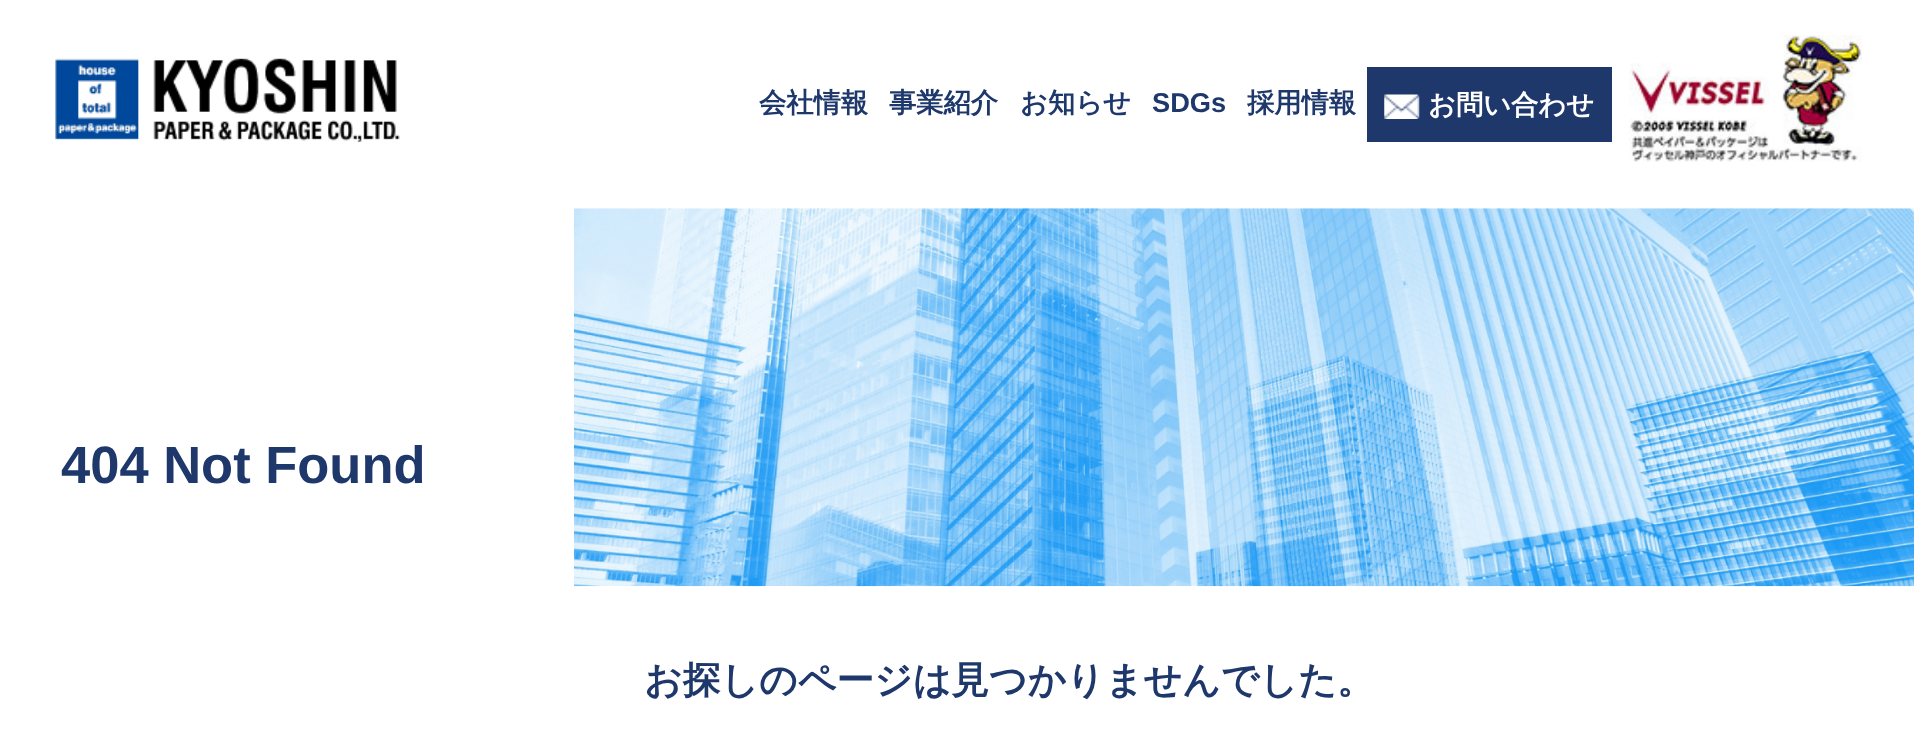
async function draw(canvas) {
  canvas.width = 1914;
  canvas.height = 742;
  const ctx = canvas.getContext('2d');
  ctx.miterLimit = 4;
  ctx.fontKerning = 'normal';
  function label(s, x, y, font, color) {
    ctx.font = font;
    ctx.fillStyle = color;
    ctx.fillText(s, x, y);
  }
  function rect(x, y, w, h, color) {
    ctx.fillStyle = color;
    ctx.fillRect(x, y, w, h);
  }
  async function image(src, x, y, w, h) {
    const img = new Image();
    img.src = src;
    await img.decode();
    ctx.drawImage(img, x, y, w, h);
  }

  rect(0, 0, 1914, 742, '#fff');
  await image('assets/img1.png', 55, 58, 345, 84);
  label('会社情報', 759, 112, 'bold 27.25px WenQuanYi Zen Hei', '#1f386c');
  label('事業紹介', 889, 112, 'bold 27.25px WenQuanYi Zen Hei', '#1f386c');
  label('お知らせ', 1020, 112, 'bold 27.25px WenQuanYi Zen Hei', '#1f386c');
  label('SDGs', 1152, 112, 'bold 27.25px Liberation Sans', '#1f386c');
  label('採用情報', 1247, 112, 'bold 27.25px WenQuanYi Zen Hei', '#1f386c');
  rect(1367, 67, 245, 75, '#1f386c');
  await image('assets/img2.png', 1384, 94, 36, 25);
  label('お問い合わせ', 1428, 114, 'bold 27.25px WenQuanYi Zen Hei', '#fff');
  await image('assets/img3.png', 1629, 35, 233, 127);
  label('404 Not Found', 61, 483, 'bold 52.5px Liberation Sans', '#1f386c');
  await image('assets/img4.png', 574, 208, 1340, 379);
  label('お探しのページは見つかりませんでした。', 644, 693, 'bold 37.75px WenQuanYi Zen Hei', '#1f386c');
}

draw(document.querySelector('canvas'));
